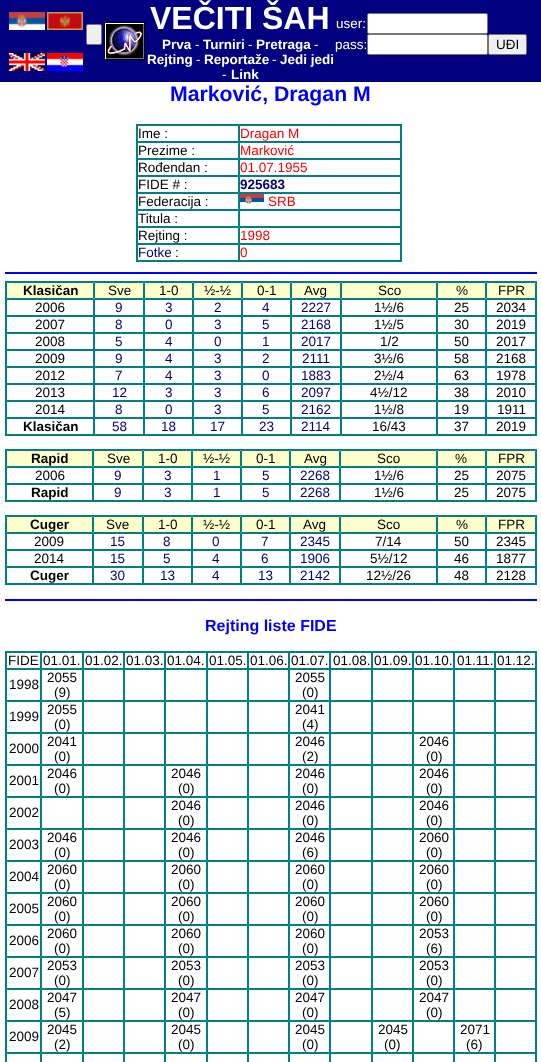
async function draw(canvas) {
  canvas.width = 541;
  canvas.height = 1062;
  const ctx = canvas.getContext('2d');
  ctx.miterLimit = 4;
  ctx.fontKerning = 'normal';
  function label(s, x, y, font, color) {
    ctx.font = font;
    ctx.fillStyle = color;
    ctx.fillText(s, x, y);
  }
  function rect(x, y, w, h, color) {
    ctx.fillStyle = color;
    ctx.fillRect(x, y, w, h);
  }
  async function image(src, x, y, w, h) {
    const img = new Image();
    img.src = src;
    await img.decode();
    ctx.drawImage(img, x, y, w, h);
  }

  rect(0, 0, 541, 1062, '#fff');
  rect(0, 0, 541, 82, '#000080');
  await image('assets/img1.png', 9, 12, 36, 18);
  await image('assets/img2.png', 47, 12, 36, 18);
  await image('assets/img3.png', 9, 53, 36, 18);
  await image('assets/img4.png', 47, 53, 36, 18);
  ctx.fillStyle = '#efefef';
  ctx.beginPath();
  ctx.roundRect(86.5, 24.5, 15, 20, 1.5);
  ctx.fill();
  ctx.strokeStyle = '#767676';
  ctx.stroke();
  await image('assets/img5.png', 104, 22, 41, 38);
  label('VEČITI ŠAH', 150, 29, 'bold 32px Liberation Sans', '#fff');
  label('Prva', 162, 49, 'bold 13.5px Liberation Sans', '#fff');
  label('-', 195, 49, '13.5px Liberation Sans', '#fff');
  label('Turniri', 203, 49, 'bold 13.5px Liberation Sans', '#fff');
  label('-', 248, 49, '13.5px Liberation Sans', '#fff');
  label('Pretraga', 256, 49, 'bold 13.5px Liberation Sans', '#fff');
  label('-', 314, 49, '13.5px Liberation Sans', '#fff');
  label('Rejting', 147, 64, 'bold 13.5px Liberation Sans', '#fff');
  label('-', 196, 64, '13.5px Liberation Sans', '#fff');
  label('Reportaže', 204, 64, 'bold 13.5px Liberation Sans', '#fff');
  label('-', 272, 64, '13.5px Liberation Sans', '#fff');
  label('Jedi jedi', 280, 64, 'bold 13.5px Liberation Sans', '#fff');
  label('-', 222, 79, '13.5px Liberation Sans', '#fff');
  label('Link', 231, 79, 'bold 13.5px Liberation Sans', '#fff');
  label('user:', 336, 28, '13.5px Liberation Sans', '#fff');
  ctx.beginPath();
  ctx.roundRect(367.5, 13.5, 120, 20, 1.5);
  ctx.fill();
  ctx.stroke();
  label('pass:', 335, 49, '13.5px Liberation Sans', '#fff');
  ctx.beginPath();
  ctx.roundRect(367.5, 34.5, 120, 20, 1.5);
  ctx.fill();
  ctx.stroke();
  ctx.fillStyle = '#efefef';
  ctx.beginPath();
  ctx.roundRect(488.5, 34.5, 38, 20, 1.5);
  ctx.fill();
  ctx.stroke();
  label('UĐI', 496, 49, '13.5px Liberation Sans', '#000');
  label('Marković, Dragan M', 170, 101, 'bold 21.25px Liberation Sans', '#00f');
  ctx.strokeStyle = '#008080';
  ctx.strokeRect(136.5, 124.5, 265, 137);
  ctx.strokeRect(137.5, 125.5, 101, 16);
  label('Ime :', 138, 138, '13.5px Liberation Sans', '#000');
  ctx.strokeRect(239.5, 125.5, 161, 16);
  label('Dragan M', 240, 138, '13.5px Liberation Sans', '#f00');
  ctx.strokeRect(137.5, 142.5, 101, 16);
  label('Prezime :', 138, 155, '13.5px Liberation Sans', '#000');
  ctx.strokeRect(239.5, 142.5, 161, 16);
  label('Marković', 240, 155, '13.5px Liberation Sans', '#f00');
  ctx.strokeRect(137.5, 159.5, 101, 16);
  label('Rođendan :', 138, 172, '13.5px Liberation Sans', '#000');
  ctx.strokeRect(239.5, 159.5, 161, 16);
  label('01.07.1955', 240, 172, '13.5px Liberation Sans', '#f00');
  ctx.strokeRect(137.5, 176.5, 101, 16);
  label('FIDE # :', 138, 189, '13.5px Liberation Sans', '#000');
  ctx.strokeRect(239.5, 176.5, 161, 16);
  label('925683', 240, 189, 'bold 13.5px Liberation Sans', '#000080');
  ctx.strokeRect(137.5, 193.5, 101, 16);
  label('Federacija :', 138, 206, '13.5px Liberation Sans', '#000');
  ctx.strokeRect(239.5, 193.5, 161, 16);
  await image('assets/img6.png', 240, 194, 24, 10);
  label('SRB', 268, 206, '13.5px Liberation Sans', '#f00');
  ctx.strokeRect(137.5, 210.5, 101, 16);
  label('Titula :', 138, 223, '13.5px Liberation Sans', '#000');
  ctx.strokeRect(239.5, 210.5, 161, 16);
  ctx.strokeRect(137.5, 227.5, 101, 16);
  label('Rejting :', 138, 240, '13.5px Liberation Sans', '#000');
  ctx.strokeRect(239.5, 227.5, 161, 16);
  label('1998', 240, 240, '13.5px Liberation Sans', '#f00');
  ctx.strokeRect(137.5, 244.5, 101, 16);
  label('Fotke', 138, 257, '13.5px Liberation Sans', '#000080');
  label(':', 175, 257, '13.5px Liberation Sans', '#000');
  ctx.strokeRect(239.5, 244.5, 161, 16);
  label('0', 240, 257, '13.5px Liberation Sans', '#f00');
  rect(5, 272, 532, 2, '#00f');
  ctx.strokeRect(5.5, 281.5, 531, 154);
  ctx.fillStyle = '#ffc';
  ctx.beginPath();
  ctx.rect(6.5, 282.5, 87, 16);
  ctx.fill();
  ctx.stroke();
  label('Klasičan', 23, 295, 'bold 13.5px Liberation Sans', '#000');
  ctx.fillStyle = '#ffc';
  ctx.beginPath();
  ctx.rect(94.5, 282.5, 49, 16);
  ctx.fill();
  ctx.stroke();
  label('Sve', 108, 295, '13.5px Liberation Sans', '#000');
  ctx.fillStyle = '#ffc';
  ctx.beginPath();
  ctx.rect(144.5, 282.5, 48, 16);
  ctx.fill();
  ctx.stroke();
  label('1-0', 159, 295, '13.5px Liberation Sans', '#000');
  ctx.fillStyle = '#ffc';
  ctx.beginPath();
  ctx.rect(193.5, 282.5, 48, 16);
  ctx.fill();
  ctx.stroke();
  label('½-½', 204, 295, '13.5px Liberation Sans', '#000');
  ctx.fillStyle = '#ffc';
  ctx.beginPath();
  ctx.rect(242.5, 282.5, 48, 16);
  ctx.fill();
  ctx.stroke();
  label('0-1', 257, 295, '13.5px Liberation Sans', '#000');
  ctx.fillStyle = '#ffc';
  ctx.beginPath();
  ctx.rect(291.5, 282.5, 49, 16);
  ctx.fill();
  ctx.stroke();
  label('Avg', 304, 295, '13.5px Liberation Sans', '#000');
  ctx.fillStyle = '#ffc';
  ctx.beginPath();
  ctx.rect(341.5, 282.5, 95, 16);
  ctx.fill();
  ctx.stroke();
  label('Sco', 378, 295, '13.5px Liberation Sans', '#000');
  ctx.fillStyle = '#ffc';
  ctx.beginPath();
  ctx.rect(437.5, 282.5, 48, 16);
  ctx.fill();
  ctx.stroke();
  label('%', 456, 295, '13.5px Liberation Sans', '#000');
  ctx.fillStyle = '#ffc';
  ctx.beginPath();
  ctx.rect(486.5, 282.5, 49, 16);
  ctx.fill();
  ctx.stroke();
  label('FPR', 498, 295, '13.5px Liberation Sans', '#000');
  ctx.strokeRect(6.5, 299.5, 87, 16);
  label('2006', 35, 312, '13.5px Liberation Sans', '#000');
  ctx.strokeRect(94.5, 299.5, 49, 16);
  label('9', 115, 312, '13.5px Liberation Sans', '#000080');
  ctx.strokeRect(144.5, 299.5, 48, 16);
  label('3', 165, 312, '13.5px Liberation Sans', '#000080');
  ctx.strokeRect(193.5, 299.5, 48, 16);
  label('2', 214, 312, '13.5px Liberation Sans', '#000080');
  ctx.strokeRect(242.5, 299.5, 48, 16);
  label('4', 262, 312, '13.5px Liberation Sans', '#000080');
  ctx.strokeRect(291.5, 299.5, 49, 16);
  label('2227', 301, 312, '13.5px Liberation Sans', '#000080');
  ctx.strokeRect(341.5, 299.5, 95, 16);
  label('1½/6', 374, 312, '13.5px Liberation Sans', '#000');
  ctx.strokeRect(437.5, 299.5, 48, 16);
  label('25', 454, 312, '13.5px Liberation Sans', '#000');
  ctx.strokeRect(486.5, 299.5, 49, 16);
  label('2034', 496, 312, '13.5px Liberation Sans', '#000');
  ctx.strokeRect(6.5, 316.5, 87, 16);
  label('2007', 35, 329, '13.5px Liberation Sans', '#000');
  ctx.strokeRect(94.5, 316.5, 49, 16);
  label('8', 115, 329, '13.5px Liberation Sans', '#000080');
  ctx.strokeRect(144.5, 316.5, 48, 16);
  label('0', 165, 329, '13.5px Liberation Sans', '#000080');
  ctx.strokeRect(193.5, 316.5, 48, 16);
  label('3', 214, 329, '13.5px Liberation Sans', '#000080');
  ctx.strokeRect(242.5, 316.5, 48, 16);
  label('5', 262, 329, '13.5px Liberation Sans', '#000080');
  ctx.strokeRect(291.5, 316.5, 49, 16);
  label('2168', 301, 329, '13.5px Liberation Sans', '#000080');
  ctx.strokeRect(341.5, 316.5, 95, 16);
  label('1½/5', 374, 329, '13.5px Liberation Sans', '#000');
  ctx.strokeRect(437.5, 316.5, 48, 16);
  label('30', 454, 329, '13.5px Liberation Sans', '#000');
  ctx.strokeRect(486.5, 316.5, 49, 16);
  label('2019', 496, 329, '13.5px Liberation Sans', '#000');
  ctx.strokeRect(6.5, 333.5, 87, 16);
  label('2008', 35, 346, '13.5px Liberation Sans', '#000');
  ctx.strokeRect(94.5, 333.5, 49, 16);
  label('5', 115, 346, '13.5px Liberation Sans', '#000080');
  ctx.strokeRect(144.5, 333.5, 48, 16);
  label('4', 165, 346, '13.5px Liberation Sans', '#000080');
  ctx.strokeRect(193.5, 333.5, 48, 16);
  label('0', 214, 346, '13.5px Liberation Sans', '#000080');
  ctx.strokeRect(242.5, 333.5, 48, 16);
  label('1', 262, 346, '13.5px Liberation Sans', '#000080');
  ctx.strokeRect(291.5, 333.5, 49, 16);
  label('2017', 301, 346, '13.5px Liberation Sans', '#000080');
  ctx.strokeRect(341.5, 333.5, 95, 16);
  label('1/2', 380, 346, '13.5px Liberation Sans', '#000');
  ctx.strokeRect(437.5, 333.5, 48, 16);
  label('50', 454, 346, '13.5px Liberation Sans', '#000');
  ctx.strokeRect(486.5, 333.5, 49, 16);
  label('2017', 496, 346, '13.5px Liberation Sans', '#000');
  ctx.strokeRect(6.5, 350.5, 87, 16);
  label('2009', 35, 363, '13.5px Liberation Sans', '#000');
  ctx.strokeRect(94.5, 350.5, 49, 16);
  label('9', 115, 363, '13.5px Liberation Sans', '#000080');
  ctx.strokeRect(144.5, 350.5, 48, 16);
  label('4', 165, 363, '13.5px Liberation Sans', '#000080');
  ctx.strokeRect(193.5, 350.5, 48, 16);
  label('3', 214, 363, '13.5px Liberation Sans', '#000080');
  ctx.strokeRect(242.5, 350.5, 48, 16);
  label('2', 262, 363, '13.5px Liberation Sans', '#000080');
  ctx.strokeRect(291.5, 350.5, 49, 16);
  label('2111', 302, 363, '13.5px Liberation Sans', '#000080');
  ctx.strokeRect(341.5, 350.5, 95, 16);
  label('3½/6', 374, 363, '13.5px Liberation Sans', '#000');
  ctx.strokeRect(437.5, 350.5, 48, 16);
  label('58', 454, 363, '13.5px Liberation Sans', '#000');
  ctx.strokeRect(486.5, 350.5, 49, 16);
  label('2168', 496, 363, '13.5px Liberation Sans', '#000');
  ctx.strokeRect(6.5, 367.5, 87, 16);
  label('2012', 35, 380, '13.5px Liberation Sans', '#000');
  ctx.strokeRect(94.5, 367.5, 49, 16);
  label('7', 115, 380, '13.5px Liberation Sans', '#000080');
  ctx.strokeRect(144.5, 367.5, 48, 16);
  label('4', 165, 380, '13.5px Liberation Sans', '#000080');
  ctx.strokeRect(193.5, 367.5, 48, 16);
  label('3', 214, 380, '13.5px Liberation Sans', '#000080');
  ctx.strokeRect(242.5, 367.5, 48, 16);
  label('0', 262, 380, '13.5px Liberation Sans', '#000080');
  ctx.strokeRect(291.5, 367.5, 49, 16);
  label('1883', 301, 380, '13.5px Liberation Sans', '#000080');
  ctx.strokeRect(341.5, 367.5, 95, 16);
  label('2½/4', 374, 380, '13.5px Liberation Sans', '#000');
  ctx.strokeRect(437.5, 367.5, 48, 16);
  label('63', 454, 380, '13.5px Liberation Sans', '#000');
  ctx.strokeRect(486.5, 367.5, 49, 16);
  label('1978', 496, 380, '13.5px Liberation Sans', '#000');
  ctx.strokeRect(6.5, 384.5, 87, 16);
  label('2013', 35, 397, '13.5px Liberation Sans', '#000');
  ctx.strokeRect(94.5, 384.5, 49, 16);
  label('12', 112, 397, '13.5px Liberation Sans', '#000080');
  ctx.strokeRect(144.5, 384.5, 48, 16);
  label('3', 165, 397, '13.5px Liberation Sans', '#000080');
  ctx.strokeRect(193.5, 384.5, 48, 16);
  label('3', 214, 397, '13.5px Liberation Sans', '#000080');
  ctx.strokeRect(242.5, 384.5, 48, 16);
  label('6', 262, 397, '13.5px Liberation Sans', '#000080');
  ctx.strokeRect(291.5, 384.5, 49, 16);
  label('2097', 301, 397, '13.5px Liberation Sans', '#000080');
  ctx.strokeRect(341.5, 384.5, 95, 16);
  label('4½/12', 370, 397, '13.5px Liberation Sans', '#000');
  ctx.strokeRect(437.5, 384.5, 48, 16);
  label('38', 454, 397, '13.5px Liberation Sans', '#000');
  ctx.strokeRect(486.5, 384.5, 49, 16);
  label('2010', 496, 397, '13.5px Liberation Sans', '#000');
  ctx.strokeRect(6.5, 401.5, 87, 16);
  label('2014', 35, 414, '13.5px Liberation Sans', '#000');
  ctx.strokeRect(94.5, 401.5, 49, 16);
  label('8', 115, 414, '13.5px Liberation Sans', '#000080');
  ctx.strokeRect(144.5, 401.5, 48, 16);
  label('0', 165, 414, '13.5px Liberation Sans', '#000080');
  ctx.strokeRect(193.5, 401.5, 48, 16);
  label('3', 214, 414, '13.5px Liberation Sans', '#000080');
  ctx.strokeRect(242.5, 401.5, 48, 16);
  label('5', 262, 414, '13.5px Liberation Sans', '#000080');
  ctx.strokeRect(291.5, 401.5, 49, 16);
  label('2162', 301, 414, '13.5px Liberation Sans', '#000080');
  ctx.strokeRect(341.5, 401.5, 95, 16);
  label('1½/8', 374, 414, '13.5px Liberation Sans', '#000');
  ctx.strokeRect(437.5, 401.5, 48, 16);
  label('19', 454, 414, '13.5px Liberation Sans', '#000');
  ctx.strokeRect(486.5, 401.5, 49, 16);
  label('1911', 497, 414, '13.5px Liberation Sans', '#000');
  ctx.strokeRect(6.5, 418.5, 87, 16);
  label('Klasičan', 23, 431, 'bold 13.5px Liberation Sans', '#000');
  ctx.strokeRect(94.5, 418.5, 49, 16);
  label('58', 112, 431, '13.5px Liberation Sans', '#000080');
  ctx.strokeRect(144.5, 418.5, 48, 16);
  label('18', 161, 431, '13.5px Liberation Sans', '#000080');
  ctx.strokeRect(193.5, 418.5, 48, 16);
  label('17', 210, 431, '13.5px Liberation Sans', '#000080');
  ctx.strokeRect(242.5, 418.5, 48, 16);
  label('23', 259, 431, '13.5px Liberation Sans', '#000080');
  ctx.strokeRect(291.5, 418.5, 49, 16);
  label('2114', 301, 431, '13.5px Liberation Sans', '#000080');
  ctx.strokeRect(341.5, 418.5, 95, 16);
  label('16/43', 372, 431, '13.5px Liberation Sans', '#000');
  ctx.strokeRect(437.5, 418.5, 48, 16);
  label('37', 454, 431, '13.5px Liberation Sans', '#000');
  ctx.strokeRect(486.5, 418.5, 49, 16);
  label('2019', 496, 431, '13.5px Liberation Sans', '#000');
  ctx.strokeRect(5.5, 449.5, 531, 52);
  ctx.fillStyle = '#ffc';
  ctx.beginPath();
  ctx.rect(6.5, 450.5, 86, 16);
  ctx.fill();
  ctx.stroke();
  label('Rapid', 31, 463, 'bold 13.5px Liberation Sans', '#000');
  ctx.fillStyle = '#ffc';
  ctx.beginPath();
  ctx.rect(93.5, 450.5, 49, 16);
  ctx.fill();
  ctx.stroke();
  label('Sve', 107, 463, '13.5px Liberation Sans', '#000');
  ctx.fillStyle = '#ffc';
  ctx.beginPath();
  ctx.rect(143.5, 450.5, 48, 16);
  ctx.fill();
  ctx.stroke();
  label('1-0', 158, 463, '13.5px Liberation Sans', '#000');
  ctx.fillStyle = '#ffc';
  ctx.beginPath();
  ctx.rect(192.5, 450.5, 48, 16);
  ctx.fill();
  ctx.stroke();
  label('½-½', 203, 463, '13.5px Liberation Sans', '#000');
  ctx.fillStyle = '#ffc';
  ctx.beginPath();
  ctx.rect(241.5, 450.5, 48, 16);
  ctx.fill();
  ctx.stroke();
  label('0-1', 256, 463, '13.5px Liberation Sans', '#000');
  ctx.fillStyle = '#ffc';
  ctx.beginPath();
  ctx.rect(290.5, 450.5, 49, 16);
  ctx.fill();
  ctx.stroke();
  label('Avg', 304, 463, '13.5px Liberation Sans', '#000');
  ctx.fillStyle = '#ffc';
  ctx.beginPath();
  ctx.rect(340.5, 450.5, 96, 16);
  ctx.fill();
  ctx.stroke();
  label('Sco', 377, 463, '13.5px Liberation Sans', '#000');
  ctx.fillStyle = '#ffc';
  ctx.beginPath();
  ctx.rect(437.5, 450.5, 48, 16);
  ctx.fill();
  ctx.stroke();
  label('%', 455, 463, '13.5px Liberation Sans', '#000');
  ctx.fillStyle = '#ffc';
  ctx.beginPath();
  ctx.rect(486.5, 450.5, 49, 16);
  ctx.fill();
  ctx.stroke();
  label('FPR', 498, 463, '13.5px Liberation Sans', '#000');
  ctx.strokeRect(6.5, 467.5, 86, 16);
  label('2006', 35, 480, '13.5px Liberation Sans', '#000');
  ctx.strokeRect(93.5, 467.5, 49, 16);
  label('9', 114, 480, '13.5px Liberation Sans', '#000080');
  ctx.strokeRect(143.5, 467.5, 48, 16);
  label('3', 164, 480, '13.5px Liberation Sans', '#000080');
  ctx.strokeRect(192.5, 467.5, 48, 16);
  label('1', 213, 480, '13.5px Liberation Sans', '#000080');
  ctx.strokeRect(241.5, 467.5, 48, 16);
  label('5', 262, 480, '13.5px Liberation Sans', '#000080');
  ctx.strokeRect(290.5, 467.5, 49, 16);
  label('2268', 300, 480, '13.5px Liberation Sans', '#000080');
  ctx.strokeRect(340.5, 467.5, 96, 16);
  label('1½/6', 374, 480, '13.5px Liberation Sans', '#000');
  ctx.strokeRect(437.5, 467.5, 48, 16);
  label('25', 454, 480, '13.5px Liberation Sans', '#000');
  ctx.strokeRect(486.5, 467.5, 49, 16);
  label('2075', 496, 480, '13.5px Liberation Sans', '#000');
  ctx.strokeRect(6.5, 484.5, 86, 16);
  label('Rapid', 31, 497, 'bold 13.5px Liberation Sans', '#000');
  ctx.strokeRect(93.5, 484.5, 49, 16);
  label('9', 114, 497, '13.5px Liberation Sans', '#000080');
  ctx.strokeRect(143.5, 484.5, 48, 16);
  label('3', 164, 497, '13.5px Liberation Sans', '#000080');
  ctx.strokeRect(192.5, 484.5, 48, 16);
  label('1', 213, 497, '13.5px Liberation Sans', '#000080');
  ctx.strokeRect(241.5, 484.5, 48, 16);
  label('5', 262, 497, '13.5px Liberation Sans', '#000080');
  ctx.strokeRect(290.5, 484.5, 49, 16);
  label('2268', 300, 497, '13.5px Liberation Sans', '#000080');
  ctx.strokeRect(340.5, 484.5, 96, 16);
  label('1½/6', 374, 497, '13.5px Liberation Sans', '#000');
  ctx.strokeRect(437.5, 484.5, 48, 16);
  label('25', 454, 497, '13.5px Liberation Sans', '#000');
  ctx.strokeRect(486.5, 484.5, 49, 16);
  label('2075', 496, 497, '13.5px Liberation Sans', '#000');
  ctx.strokeRect(5.5, 515.5, 531, 69);
  ctx.fillStyle = '#ffc';
  ctx.beginPath();
  ctx.rect(6.5, 516.5, 86, 16);
  ctx.fill();
  ctx.stroke();
  label('Cuger', 30, 529, 'bold 13.5px Liberation Sans', '#000');
  ctx.fillStyle = '#ffc';
  ctx.beginPath();
  ctx.rect(93.5, 516.5, 49, 16);
  ctx.fill();
  ctx.stroke();
  label('Sve', 106, 529, '13.5px Liberation Sans', '#000');
  ctx.fillStyle = '#ffc';
  ctx.beginPath();
  ctx.rect(143.5, 516.5, 48, 16);
  ctx.fill();
  ctx.stroke();
  label('1-0', 158, 529, '13.5px Liberation Sans', '#000');
  ctx.fillStyle = '#ffc';
  ctx.beginPath();
  ctx.rect(192.5, 516.5, 48, 16);
  ctx.fill();
  ctx.stroke();
  label('½-½', 203, 529, '13.5px Liberation Sans', '#000');
  ctx.fillStyle = '#ffc';
  ctx.beginPath();
  ctx.rect(241.5, 516.5, 48, 16);
  ctx.fill();
  ctx.stroke();
  label('0-1', 256, 529, '13.5px Liberation Sans', '#000');
  ctx.fillStyle = '#ffc';
  ctx.beginPath();
  ctx.rect(290.5, 516.5, 49, 16);
  ctx.fill();
  ctx.stroke();
  label('Avg', 303, 529, '13.5px Liberation Sans', '#000');
  ctx.fillStyle = '#ffc';
  ctx.beginPath();
  ctx.rect(340.5, 516.5, 96, 16);
  ctx.fill();
  ctx.stroke();
  label('Sco', 377, 529, '13.5px Liberation Sans', '#000');
  ctx.fillStyle = '#ffc';
  ctx.beginPath();
  ctx.rect(437.5, 516.5, 48, 16);
  ctx.fill();
  ctx.stroke();
  label('%', 456, 529, '13.5px Liberation Sans', '#000');
  ctx.fillStyle = '#ffc';
  ctx.beginPath();
  ctx.rect(486.5, 516.5, 49, 16);
  ctx.fill();
  ctx.stroke();
  label('FPR', 498, 529, '13.5px Liberation Sans', '#000');
  ctx.strokeRect(6.5, 533.5, 86, 16);
  label('2009', 34, 546, '13.5px Liberation Sans', '#000');
  ctx.strokeRect(93.5, 533.5, 49, 16);
  label('15', 110, 546, '13.5px Liberation Sans', '#000080');
  ctx.strokeRect(143.5, 533.5, 48, 16);
  label('8', 163, 546, '13.5px Liberation Sans', '#000080');
  ctx.strokeRect(192.5, 533.5, 48, 16);
  label('0', 212, 546, '13.5px Liberation Sans', '#000080');
  ctx.strokeRect(241.5, 533.5, 48, 16);
  label('7', 261, 546, '13.5px Liberation Sans', '#000080');
  ctx.strokeRect(290.5, 533.5, 49, 16);
  label('2345', 300, 546, '13.5px Liberation Sans', '#000080');
  ctx.strokeRect(340.5, 533.5, 96, 16);
  label('7/14', 375, 546, '13.5px Liberation Sans', '#000');
  ctx.strokeRect(437.5, 533.5, 48, 16);
  label('50', 454, 546, '13.5px Liberation Sans', '#000');
  ctx.strokeRect(486.5, 533.5, 49, 16);
  label('2345', 496, 546, '13.5px Liberation Sans', '#000');
  ctx.strokeRect(6.5, 550.5, 86, 16);
  label('2014', 34, 563, '13.5px Liberation Sans', '#000');
  ctx.strokeRect(93.5, 550.5, 49, 16);
  label('15', 110, 563, '13.5px Liberation Sans', '#000080');
  ctx.strokeRect(143.5, 550.5, 48, 16);
  label('5', 163, 563, '13.5px Liberation Sans', '#000080');
  ctx.strokeRect(192.5, 550.5, 48, 16);
  label('4', 212, 563, '13.5px Liberation Sans', '#000080');
  ctx.strokeRect(241.5, 550.5, 48, 16);
  label('6', 261, 563, '13.5px Liberation Sans', '#000080');
  ctx.strokeRect(290.5, 550.5, 49, 16);
  label('1906', 300, 563, '13.5px Liberation Sans', '#000080');
  ctx.strokeRect(340.5, 550.5, 96, 16);
  label('5½/12', 370, 563, '13.5px Liberation Sans', '#000');
  ctx.strokeRect(437.5, 550.5, 48, 16);
  label('46', 454, 563, '13.5px Liberation Sans', '#000');
  ctx.strokeRect(486.5, 550.5, 49, 16);
  label('1877', 496, 563, '13.5px Liberation Sans', '#000');
  ctx.strokeRect(6.5, 567.5, 86, 16);
  label('Cuger', 30, 580, 'bold 13.5px Liberation Sans', '#000');
  ctx.strokeRect(93.5, 567.5, 49, 16);
  label('30', 110, 580, '13.5px Liberation Sans', '#000080');
  ctx.strokeRect(143.5, 567.5, 48, 16);
  label('13', 160, 580, '13.5px Liberation Sans', '#000080');
  ctx.strokeRect(192.5, 567.5, 48, 16);
  label('4', 212, 580, '13.5px Liberation Sans', '#000080');
  ctx.strokeRect(241.5, 567.5, 48, 16);
  label('13', 258, 580, '13.5px Liberation Sans', '#000080');
  ctx.strokeRect(290.5, 567.5, 49, 16);
  label('2142', 300, 580, '13.5px Liberation Sans', '#000080');
  ctx.strokeRect(340.5, 567.5, 96, 16);
  label('12½/26', 366, 580, '13.5px Liberation Sans', '#000');
  ctx.strokeRect(437.5, 567.5, 48, 16);
  label('48', 454, 580, '13.5px Liberation Sans', '#000');
  ctx.strokeRect(486.5, 567.5, 49, 16);
  label('2128', 496, 580, '13.5px Liberation Sans', '#000');
  rect(5, 599, 532, 2, '#00f');
  label('Rejting liste FIDE', 205, 631, 'bold 16px Liberation Sans', '#00f');
  ctx.strokeRect(5.5, 651.5, 531, 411);
  ctx.strokeRect(6.5, 652.5, 34, 16);
  label('FIDE', 8, 665, '13.5px Liberation Sans', '#000');
  ctx.strokeRect(41.5, 652.5, 41, 16);
  label('01.01.', 43, 665, '13.5px Liberation Sans', '#000');
  ctx.strokeRect(83.5, 652.5, 40, 16);
  label('01.02.', 85, 665, '13.5px Liberation Sans', '#000');
  ctx.strokeRect(124.5, 652.5, 40, 16);
  label('01.03.', 126, 665, '13.5px Liberation Sans', '#000');
  ctx.strokeRect(165.5, 652.5, 41, 16);
  label('01.04.', 167, 665, '13.5px Liberation Sans', '#000');
  ctx.strokeRect(207.5, 652.5, 40, 16);
  label('01.05.', 209, 665, '13.5px Liberation Sans', '#000');
  ctx.strokeRect(248.5, 652.5, 40, 16);
  label('01.06.', 250, 665, '13.5px Liberation Sans', '#000');
  ctx.strokeRect(289.5, 652.5, 40, 16);
  label('01.07.', 291, 665, '13.5px Liberation Sans', '#000');
  ctx.strokeRect(330.5, 652.5, 41, 16);
  label('01.08.', 333, 665, '13.5px Liberation Sans', '#000');
  ctx.strokeRect(372.5, 652.5, 40, 16);
  label('01.09.', 374, 665, '13.5px Liberation Sans', '#000');
  ctx.strokeRect(413.5, 652.5, 40, 16);
  label('01.10.', 415, 665, '13.5px Liberation Sans', '#000');
  ctx.strokeRect(454.5, 652.5, 40, 16);
  label('01.11.', 457, 665, '13.5px Liberation Sans', '#000');
  ctx.strokeRect(495.5, 652.5, 40, 16);
  label('01.12.', 497, 665, '13.5px Liberation Sans', '#000');
  ctx.strokeRect(6.5, 669.5, 34, 31);
  label('1998', 9, 689, '13.5px Liberation Sans', '#000');
  ctx.strokeRect(41.5, 669.5, 41, 31);
  label('2055', 47, 682, '13.5px Liberation Sans', '#000');
  label('(9)', 54, 697, '13.5px Liberation Sans', '#000');
  ctx.strokeRect(83.5, 669.5, 40, 31);
  ctx.strokeRect(124.5, 669.5, 40, 31);
  ctx.strokeRect(165.5, 669.5, 41, 31);
  ctx.strokeRect(207.5, 669.5, 40, 31);
  ctx.strokeRect(248.5, 669.5, 40, 31);
  ctx.strokeRect(289.5, 669.5, 40, 31);
  label('2055', 295, 682, '13.5px Liberation Sans', '#000');
  label('(0)', 302, 697, '13.5px Liberation Sans', '#000');
  ctx.strokeRect(330.5, 669.5, 41, 31);
  ctx.strokeRect(372.5, 669.5, 40, 31);
  ctx.strokeRect(413.5, 669.5, 40, 31);
  ctx.strokeRect(454.5, 669.5, 40, 31);
  ctx.strokeRect(495.5, 669.5, 40, 31);
  ctx.strokeRect(6.5, 701.5, 34, 31);
  label('1999', 9, 721, '13.5px Liberation Sans', '#000');
  ctx.strokeRect(41.5, 701.5, 41, 31);
  label('2055', 47, 714, '13.5px Liberation Sans', '#000');
  label('(0)', 54, 729, '13.5px Liberation Sans', '#000');
  ctx.strokeRect(83.5, 701.5, 40, 31);
  ctx.strokeRect(124.5, 701.5, 40, 31);
  ctx.strokeRect(165.5, 701.5, 41, 31);
  ctx.strokeRect(207.5, 701.5, 40, 31);
  ctx.strokeRect(248.5, 701.5, 40, 31);
  ctx.strokeRect(289.5, 701.5, 40, 31);
  label('2041', 295, 714, '13.5px Liberation Sans', '#000');
  label('(4)', 302, 729, '13.5px Liberation Sans', '#000');
  ctx.strokeRect(330.5, 701.5, 41, 31);
  ctx.strokeRect(372.5, 701.5, 40, 31);
  ctx.strokeRect(413.5, 701.5, 40, 31);
  ctx.strokeRect(454.5, 701.5, 40, 31);
  ctx.strokeRect(495.5, 701.5, 40, 31);
  ctx.strokeRect(6.5, 733.5, 34, 31);
  label('2000', 9, 753, '13.5px Liberation Sans', '#000');
  ctx.strokeRect(41.5, 733.5, 41, 31);
  label('2041', 47, 746, '13.5px Liberation Sans', '#000');
  label('(0)', 54, 761, '13.5px Liberation Sans', '#000');
  ctx.strokeRect(83.5, 733.5, 40, 31);
  ctx.strokeRect(124.5, 733.5, 40, 31);
  ctx.strokeRect(165.5, 733.5, 41, 31);
  ctx.strokeRect(207.5, 733.5, 40, 31);
  ctx.strokeRect(248.5, 733.5, 40, 31);
  ctx.strokeRect(289.5, 733.5, 40, 31);
  label('2046', 295, 746, '13.5px Liberation Sans', '#000');
  label('(2)', 302, 761, '13.5px Liberation Sans', '#000');
  ctx.strokeRect(330.5, 733.5, 41, 31);
  ctx.strokeRect(372.5, 733.5, 40, 31);
  ctx.strokeRect(413.5, 733.5, 40, 31);
  label('2046', 419, 746, '13.5px Liberation Sans', '#000');
  label('(0)', 426, 761, '13.5px Liberation Sans', '#000');
  ctx.strokeRect(454.5, 733.5, 40, 31);
  ctx.strokeRect(495.5, 733.5, 40, 31);
  ctx.strokeRect(6.5, 765.5, 34, 31);
  label('2001', 9, 785, '13.5px Liberation Sans', '#000');
  ctx.strokeRect(41.5, 765.5, 41, 31);
  label('2046', 47, 778, '13.5px Liberation Sans', '#000');
  label('(0)', 54, 793, '13.5px Liberation Sans', '#000');
  ctx.strokeRect(83.5, 765.5, 40, 31);
  ctx.strokeRect(124.5, 765.5, 40, 31);
  ctx.strokeRect(165.5, 765.5, 41, 31);
  label('2046', 171, 778, '13.5px Liberation Sans', '#000');
  label('(0)', 178, 793, '13.5px Liberation Sans', '#000');
  ctx.strokeRect(207.5, 765.5, 40, 31);
  ctx.strokeRect(248.5, 765.5, 40, 31);
  ctx.strokeRect(289.5, 765.5, 40, 31);
  label('2046', 295, 778, '13.5px Liberation Sans', '#000');
  label('(0)', 302, 793, '13.5px Liberation Sans', '#000');
  ctx.strokeRect(330.5, 765.5, 41, 31);
  ctx.strokeRect(372.5, 765.5, 40, 31);
  ctx.strokeRect(413.5, 765.5, 40, 31);
  label('2046', 419, 778, '13.5px Liberation Sans', '#000');
  label('(0)', 426, 793, '13.5px Liberation Sans', '#000');
  ctx.strokeRect(454.5, 765.5, 40, 31);
  ctx.strokeRect(495.5, 765.5, 40, 31);
  ctx.strokeRect(6.5, 797.5, 34, 31);
  label('2002', 9, 817, '13.5px Liberation Sans', '#000');
  ctx.strokeRect(41.5, 797.5, 41, 31);
  ctx.strokeRect(83.5, 797.5, 40, 31);
  ctx.strokeRect(124.5, 797.5, 40, 31);
  ctx.strokeRect(165.5, 797.5, 41, 31);
  label('2046', 171, 810, '13.5px Liberation Sans', '#000');
  label('(0)', 178, 825, '13.5px Liberation Sans', '#000');
  ctx.strokeRect(207.5, 797.5, 40, 31);
  ctx.strokeRect(248.5, 797.5, 40, 31);
  ctx.strokeRect(289.5, 797.5, 40, 31);
  label('2046', 295, 810, '13.5px Liberation Sans', '#000');
  label('(0)', 302, 825, '13.5px Liberation Sans', '#000');
  ctx.strokeRect(330.5, 797.5, 41, 31);
  ctx.strokeRect(372.5, 797.5, 40, 31);
  ctx.strokeRect(413.5, 797.5, 40, 31);
  label('2046', 419, 810, '13.5px Liberation Sans', '#000');
  label('(0)', 426, 825, '13.5px Liberation Sans', '#000');
  ctx.strokeRect(454.5, 797.5, 40, 31);
  ctx.strokeRect(495.5, 797.5, 40, 31);
  ctx.strokeRect(6.5, 829.5, 34, 31);
  label('2003', 9, 849, '13.5px Liberation Sans', '#000');
  ctx.strokeRect(41.5, 829.5, 41, 31);
  label('2046', 47, 842, '13.5px Liberation Sans', '#000');
  label('(0)', 54, 857, '13.5px Liberation Sans', '#000');
  ctx.strokeRect(83.5, 829.5, 40, 31);
  ctx.strokeRect(124.5, 829.5, 40, 31);
  ctx.strokeRect(165.5, 829.5, 41, 31);
  label('2046', 171, 842, '13.5px Liberation Sans', '#000');
  label('(0)', 178, 857, '13.5px Liberation Sans', '#000');
  ctx.strokeRect(207.5, 829.5, 40, 31);
  ctx.strokeRect(248.5, 829.5, 40, 31);
  ctx.strokeRect(289.5, 829.5, 40, 31);
  label('2046', 295, 842, '13.5px Liberation Sans', '#000');
  label('(6)', 302, 857, '13.5px Liberation Sans', '#000');
  ctx.strokeRect(330.5, 829.5, 41, 31);
  ctx.strokeRect(372.5, 829.5, 40, 31);
  ctx.strokeRect(413.5, 829.5, 40, 31);
  label('2060', 419, 842, '13.5px Liberation Sans', '#000');
  label('(0)', 426, 857, '13.5px Liberation Sans', '#000');
  ctx.strokeRect(454.5, 829.5, 40, 31);
  ctx.strokeRect(495.5, 829.5, 40, 31);
  ctx.strokeRect(6.5, 861.5, 34, 31);
  label('2004', 9, 881, '13.5px Liberation Sans', '#000');
  ctx.strokeRect(41.5, 861.5, 41, 31);
  label('2060', 47, 874, '13.5px Liberation Sans', '#000');
  label('(0)', 54, 889, '13.5px Liberation Sans', '#000');
  ctx.strokeRect(83.5, 861.5, 40, 31);
  ctx.strokeRect(124.5, 861.5, 40, 31);
  ctx.strokeRect(165.5, 861.5, 41, 31);
  label('2060', 171, 874, '13.5px Liberation Sans', '#000');
  label('(0)', 178, 889, '13.5px Liberation Sans', '#000');
  ctx.strokeRect(207.5, 861.5, 40, 31);
  ctx.strokeRect(248.5, 861.5, 40, 31);
  ctx.strokeRect(289.5, 861.5, 40, 31);
  label('2060', 295, 874, '13.5px Liberation Sans', '#000');
  label('(0)', 302, 889, '13.5px Liberation Sans', '#000');
  ctx.strokeRect(330.5, 861.5, 41, 31);
  ctx.strokeRect(372.5, 861.5, 40, 31);
  ctx.strokeRect(413.5, 861.5, 40, 31);
  label('2060', 419, 874, '13.5px Liberation Sans', '#000');
  label('(0)', 426, 889, '13.5px Liberation Sans', '#000');
  ctx.strokeRect(454.5, 861.5, 40, 31);
  ctx.strokeRect(495.5, 861.5, 40, 31);
  ctx.strokeRect(6.5, 893.5, 34, 31);
  label('2005', 9, 913, '13.5px Liberation Sans', '#000');
  ctx.strokeRect(41.5, 893.5, 41, 31);
  label('2060', 47, 906, '13.5px Liberation Sans', '#000');
  label('(0)', 54, 921, '13.5px Liberation Sans', '#000');
  ctx.strokeRect(83.5, 893.5, 40, 31);
  ctx.strokeRect(124.5, 893.5, 40, 31);
  ctx.strokeRect(165.5, 893.5, 41, 31);
  label('2060', 171, 906, '13.5px Liberation Sans', '#000');
  label('(0)', 178, 921, '13.5px Liberation Sans', '#000');
  ctx.strokeRect(207.5, 893.5, 40, 31);
  ctx.strokeRect(248.5, 893.5, 40, 31);
  ctx.strokeRect(289.5, 893.5, 40, 31);
  label('2060', 295, 906, '13.5px Liberation Sans', '#000');
  label('(0)', 302, 921, '13.5px Liberation Sans', '#000');
  ctx.strokeRect(330.5, 893.5, 41, 31);
  ctx.strokeRect(372.5, 893.5, 40, 31);
  ctx.strokeRect(413.5, 893.5, 40, 31);
  label('2060', 419, 906, '13.5px Liberation Sans', '#000');
  label('(0)', 426, 921, '13.5px Liberation Sans', '#000');
  ctx.strokeRect(454.5, 893.5, 40, 31);
  ctx.strokeRect(495.5, 893.5, 40, 31);
  ctx.strokeRect(6.5, 925.5, 34, 31);
  label('2006', 9, 945, '13.5px Liberation Sans', '#000');
  ctx.strokeRect(41.5, 925.5, 41, 31);
  label('2060', 47, 938, '13.5px Liberation Sans', '#000');
  label('(0)', 54, 953, '13.5px Liberation Sans', '#000');
  ctx.strokeRect(83.5, 925.5, 40, 31);
  ctx.strokeRect(124.5, 925.5, 40, 31);
  ctx.strokeRect(165.5, 925.5, 41, 31);
  label('2060', 171, 938, '13.5px Liberation Sans', '#000');
  label('(0)', 178, 953, '13.5px Liberation Sans', '#000');
  ctx.strokeRect(207.5, 925.5, 40, 31);
  ctx.strokeRect(248.5, 925.5, 40, 31);
  ctx.strokeRect(289.5, 925.5, 40, 31);
  label('2060', 295, 938, '13.5px Liberation Sans', '#000');
  label('(0)', 302, 953, '13.5px Liberation Sans', '#000');
  ctx.strokeRect(330.5, 925.5, 41, 31);
  ctx.strokeRect(372.5, 925.5, 40, 31);
  ctx.strokeRect(413.5, 925.5, 40, 31);
  label('2053', 419, 938, '13.5px Liberation Sans', '#000');
  label('(6)', 426, 953, '13.5px Liberation Sans', '#000');
  ctx.strokeRect(454.5, 925.5, 40, 31);
  ctx.strokeRect(495.5, 925.5, 40, 31);
  ctx.strokeRect(6.5, 957.5, 34, 31);
  label('2007', 9, 977, '13.5px Liberation Sans', '#000');
  ctx.strokeRect(41.5, 957.5, 41, 31);
  label('2053', 47, 970, '13.5px Liberation Sans', '#000');
  label('(0)', 54, 985, '13.5px Liberation Sans', '#000');
  ctx.strokeRect(83.5, 957.5, 40, 31);
  ctx.strokeRect(124.5, 957.5, 40, 31);
  ctx.strokeRect(165.5, 957.5, 41, 31);
  label('2053', 171, 970, '13.5px Liberation Sans', '#000');
  label('(0)', 178, 985, '13.5px Liberation Sans', '#000');
  ctx.strokeRect(207.5, 957.5, 40, 31);
  ctx.strokeRect(248.5, 957.5, 40, 31);
  ctx.strokeRect(289.5, 957.5, 40, 31);
  label('2053', 295, 970, '13.5px Liberation Sans', '#000');
  label('(0)', 302, 985, '13.5px Liberation Sans', '#000');
  ctx.strokeRect(330.5, 957.5, 41, 31);
  ctx.strokeRect(372.5, 957.5, 40, 31);
  ctx.strokeRect(413.5, 957.5, 40, 31);
  label('2053', 419, 970, '13.5px Liberation Sans', '#000');
  label('(0)', 426, 985, '13.5px Liberation Sans', '#000');
  ctx.strokeRect(454.5, 957.5, 40, 31);
  ctx.strokeRect(495.5, 957.5, 40, 31);
  ctx.strokeRect(6.5, 989.5, 34, 31);
  label('2008', 9, 1009, '13.5px Liberation Sans', '#000');
  ctx.strokeRect(41.5, 989.5, 41, 31);
  label('2047', 47, 1002, '13.5px Liberation Sans', '#000');
  label('(5)', 54, 1017, '13.5px Liberation Sans', '#000');
  ctx.strokeRect(83.5, 989.5, 40, 31);
  ctx.strokeRect(124.5, 989.5, 40, 31);
  ctx.strokeRect(165.5, 989.5, 41, 31);
  label('2047', 171, 1002, '13.5px Liberation Sans', '#000');
  label('(0)', 178, 1017, '13.5px Liberation Sans', '#000');
  ctx.strokeRect(207.5, 989.5, 40, 31);
  ctx.strokeRect(248.5, 989.5, 40, 31);
  ctx.strokeRect(289.5, 989.5, 40, 31);
  label('2047', 295, 1002, '13.5px Liberation Sans', '#000');
  label('(0)', 302, 1017, '13.5px Liberation Sans', '#000');
  ctx.strokeRect(330.5, 989.5, 41, 31);
  ctx.strokeRect(372.5, 989.5, 40, 31);
  ctx.strokeRect(413.5, 989.5, 40, 31);
  label('2047', 419, 1002, '13.5px Liberation Sans', '#000');
  label('(0)', 426, 1017, '13.5px Liberation Sans', '#000');
  ctx.strokeRect(454.5, 989.5, 40, 31);
  ctx.strokeRect(495.5, 989.5, 40, 31);
  ctx.strokeRect(6.5, 1021.5, 34, 31);
  label('2009', 9, 1041, '13.5px Liberation Sans', '#000');
  ctx.strokeRect(41.5, 1021.5, 41, 31);
  label('2045', 47, 1034, '13.5px Liberation Sans', '#000');
  label('(2)', 54, 1049, '13.5px Liberation Sans', '#000');
  ctx.strokeRect(83.5, 1021.5, 40, 31);
  ctx.strokeRect(124.5, 1021.5, 40, 31);
  ctx.strokeRect(165.5, 1021.5, 41, 31);
  label('2045', 171, 1034, '13.5px Liberation Sans', '#000');
  label('(0)', 178, 1049, '13.5px Liberation Sans', '#000');
  ctx.strokeRect(207.5, 1021.5, 40, 31);
  ctx.strokeRect(248.5, 1021.5, 40, 31);
  ctx.strokeRect(289.5, 1021.5, 40, 31);
  label('2045', 295, 1034, '13.5px Liberation Sans', '#000');
  label('(0)', 302, 1049, '13.5px Liberation Sans', '#000');
  ctx.strokeRect(330.5, 1021.5, 41, 31);
  ctx.strokeRect(372.5, 1021.5, 40, 31);
  label('2045', 378, 1034, '13.5px Liberation Sans', '#000');
  label('(0)', 384, 1049, '13.5px Liberation Sans', '#000');
  ctx.strokeRect(413.5, 1021.5, 40, 31);
  ctx.strokeRect(454.5, 1021.5, 40, 31);
  label('2071', 460, 1034, '13.5px Liberation Sans', '#000');
  label('(6)', 466, 1049, '13.5px Liberation Sans', '#000');
  ctx.strokeRect(495.5, 1021.5, 40, 31);
  ctx.strokeRect(6.5, 1053.5, 34, 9);
  ctx.strokeRect(41.5, 1053.5, 41, 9);
  ctx.strokeRect(83.5, 1053.5, 40, 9);
  ctx.strokeRect(124.5, 1053.5, 40, 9);
  ctx.strokeRect(165.5, 1053.5, 41, 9);
  ctx.strokeRect(207.5, 1053.5, 40, 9);
  ctx.strokeRect(248.5, 1053.5, 40, 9);
  ctx.strokeRect(289.5, 1053.5, 40, 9);
  ctx.strokeRect(330.5, 1053.5, 41, 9);
  ctx.strokeRect(372.5, 1053.5, 40, 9);
  ctx.strokeRect(413.5, 1053.5, 40, 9);
  ctx.strokeRect(454.5, 1053.5, 40, 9);
  ctx.strokeRect(495.5, 1053.5, 40, 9);
}

draw(document.querySelector('canvas'));
